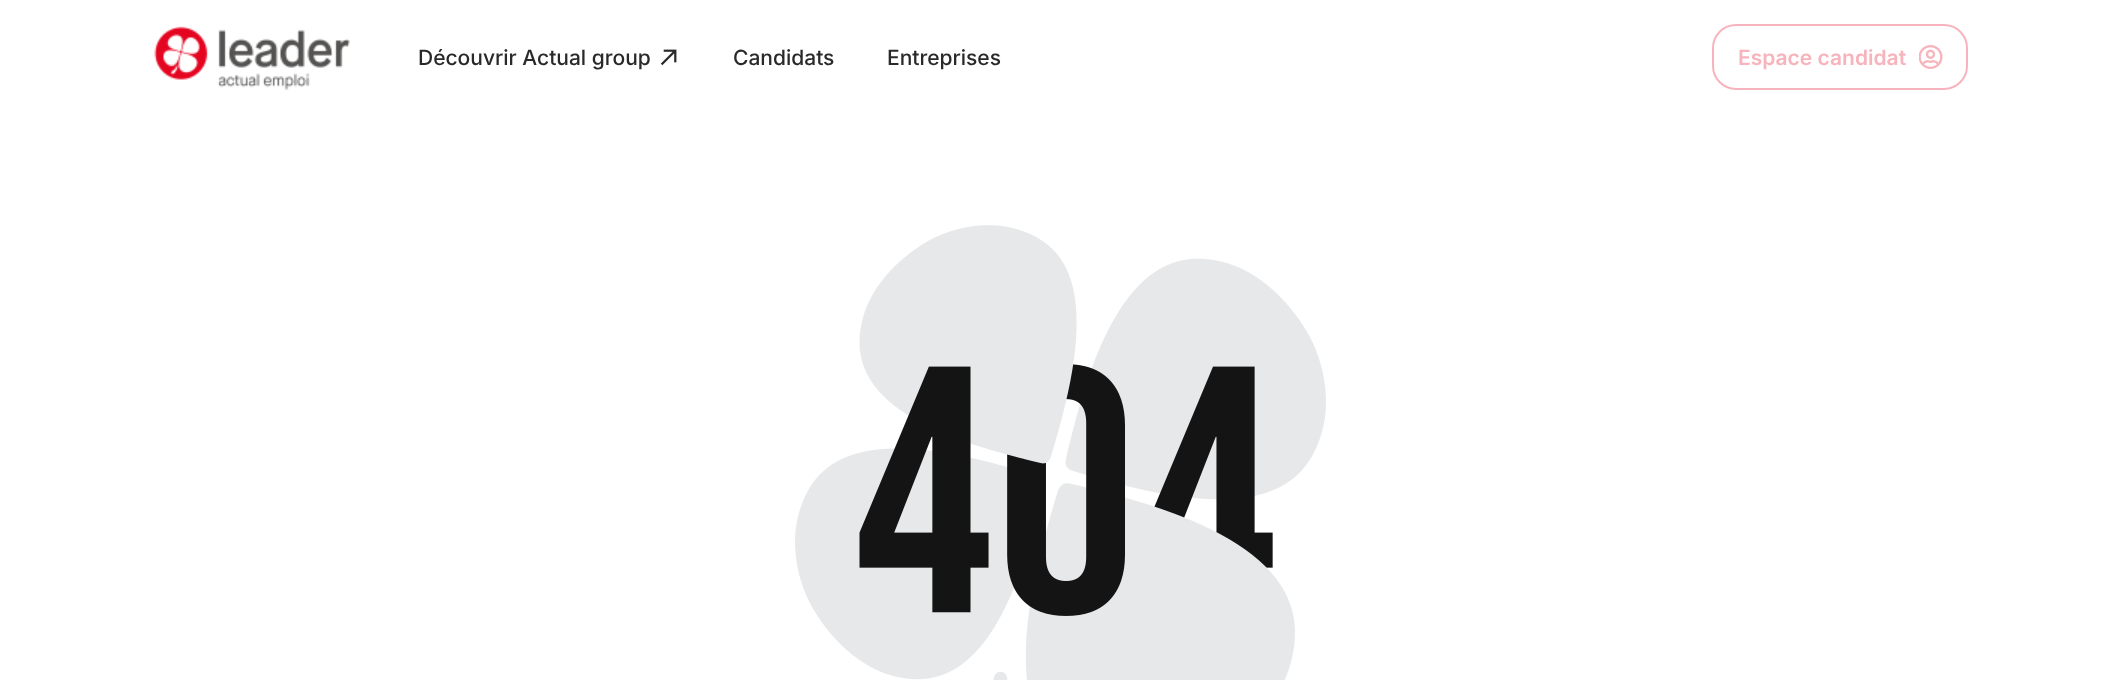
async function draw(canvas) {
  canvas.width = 2119;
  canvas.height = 680;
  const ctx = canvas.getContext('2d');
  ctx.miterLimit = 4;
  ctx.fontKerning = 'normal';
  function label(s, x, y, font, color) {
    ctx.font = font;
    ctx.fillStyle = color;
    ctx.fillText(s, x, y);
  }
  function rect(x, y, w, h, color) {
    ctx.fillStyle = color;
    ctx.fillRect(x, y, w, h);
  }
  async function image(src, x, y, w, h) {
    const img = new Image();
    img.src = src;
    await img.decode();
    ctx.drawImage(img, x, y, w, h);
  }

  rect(0, 0, 2119, 680, '#fff');
  await image('assets/img1.png', 154, 26, 196, 64);
  label('Découvrir Actual group', 418, 65, '500 21px Inter', '#292929');
  await image('assets/img2.png', 660, 49, 17, 17);
  label('Candidats', 733, 65, '500 21px Inter', '#292929');
  label('Entreprises', 887, 65, '500 21px Inter', '#292929');
  ctx.beginPath();
  ctx.roundRect(1713, 25, 254, 64, 23);
  ctx.strokeStyle = '#f7b4bc';
  ctx.lineWidth = 2;
  ctx.stroke();
  label('Espace candidat', 1738, 65, '600 21px Inter', '#f7b4bc');
  await image('assets/img3.png', 1919, 45, 24, 24);
  await image('assets/img4.png', 795, 225, 531, 455);
}

draw(document.querySelector('canvas'));
